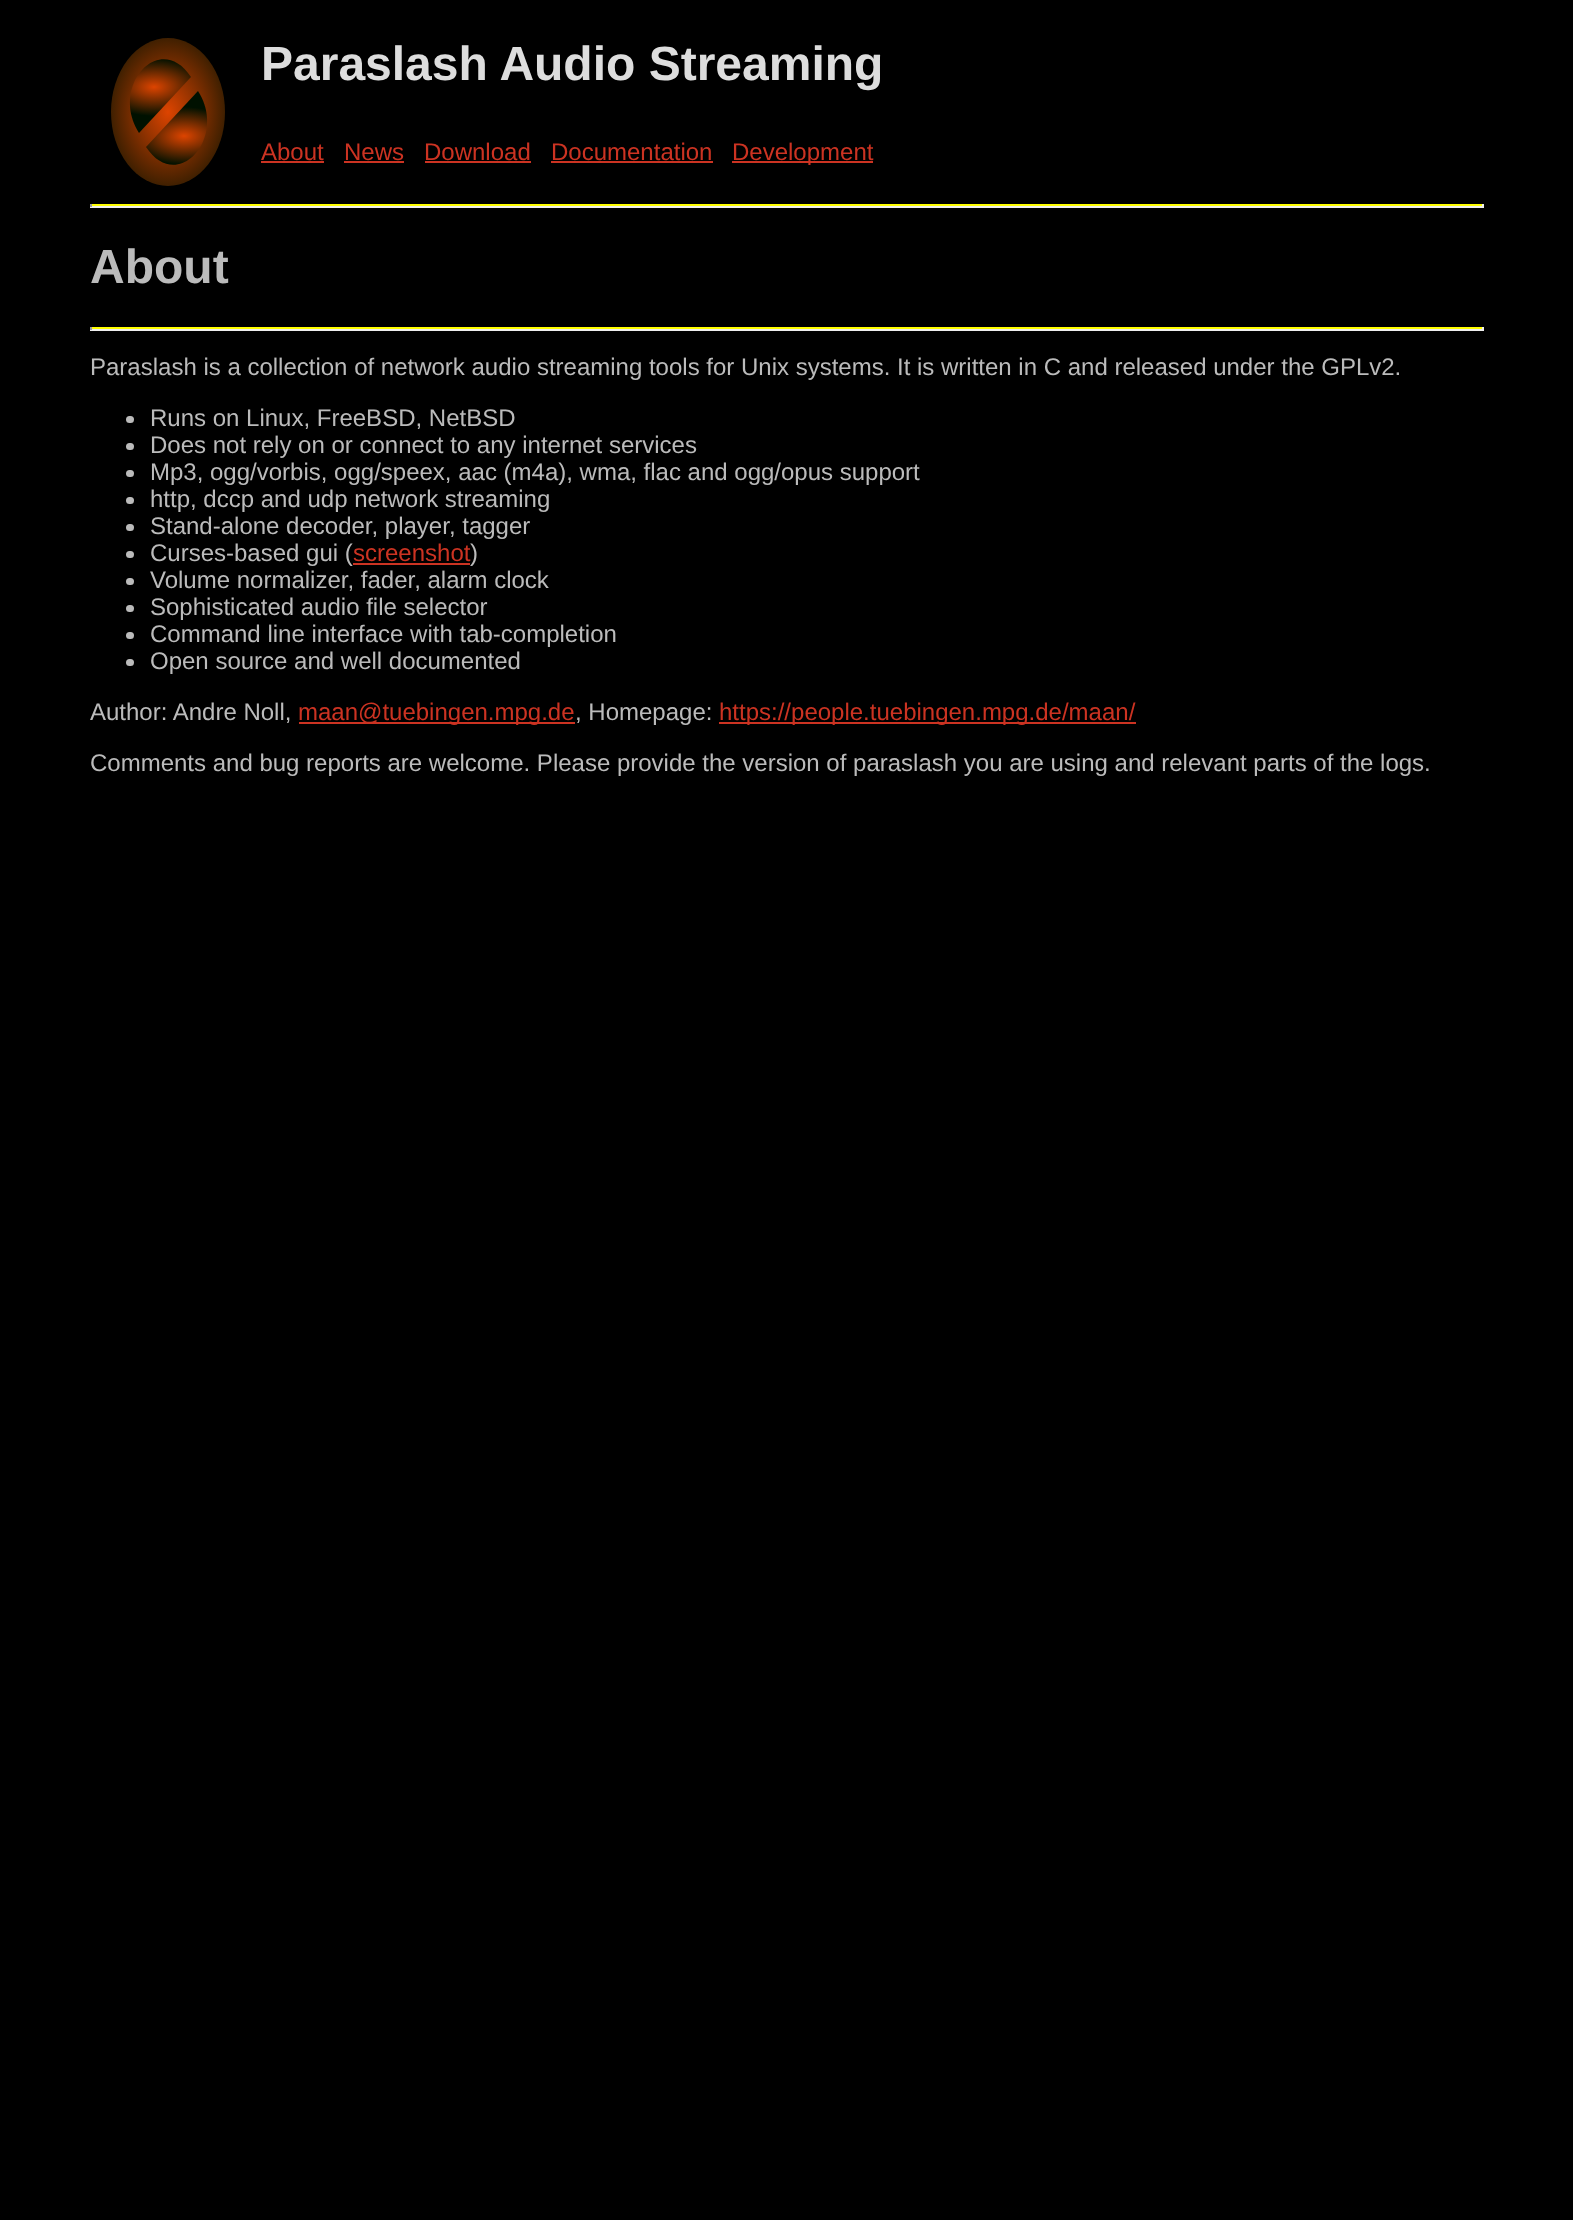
async function draw(canvas) {
  canvas.width = 1573;
  canvas.height = 2220;
  const ctx = canvas.getContext('2d');
  ctx.miterLimit = 4;
  ctx.fontKerning = 'normal';
  function label(s, x, y, font, color) {
    ctx.font = font;
    ctx.fillStyle = color;
    ctx.fillText(s, x, y);
  }
  function rect(x, y, w, h, color) {
    ctx.fillStyle = color;
    ctx.fillRect(x, y, w, h);
  }
  function roundedRect(x, y, w, h, r, color) {
    ctx.fillStyle = color;
    ctx.beginPath();
    ctx.roundRect(x, y, w, h, r);
    ctx.fill();
  }
  let gradient, path;

  rect(0, 0, 1573, 2220, '#000');
  gradient = ctx.createRadialGradient(168, 86.15, 0, 168, 86.15, 80);
  gradient.addColorStop(0, '#d40');
  gradient.addColorStop(1, '#010');
  ctx.fillStyle = gradient;
  ctx.beginPath();
  ctx.ellipse(168, 112, 57, 74, 0, 0, 2 * Math.PI);
  ctx.save();
  ctx.clip();
  ctx.scale(1, 104 / 80);
  ctx.fillRect(0, 0, 1573, 1708);
  ctx.restore();
  gradient = ctx.createRadialGradient(154, 162, 0, 154, 162, 54);
  gradient.addColorStop(0, '#d40');
  gradient.addColorStop(1, '#010');
  ctx.fillStyle = gradient;
  path = new Path2D('M139 133C109 86 160 30 191 77');
  ctx.save();
  ctx.clip(path);
  ctx.scale(1, 29 / 54);
  ctx.fillRect(0, 0, 1573, 4134);
  ctx.restore();
  gradient = ctx.createRadialGradient(184, 253.24, 0, 184, 253.24, 54);
  gradient.addColorStop(0, '#d40');
  gradient.addColorStop(1, '#010');
  ctx.fillStyle = gradient;
  path = new Path2D('M198 91C228 138 177 194 146 147');
  ctx.save();
  ctx.clip(path);
  ctx.scale(1, 29 / 54);
  ctx.fillRect(0, 0, 1573, 4134);
  ctx.restore();
  label('Paraslash Audio Streaming', 261, 80, 'bold 48px Liberation Sans', '#ddd');
  label('About', 261, 160, '24px Liberation Sans', '#c32');
  rect(261, 161, 63, 2, '#c32');
  label('News', 344, 160, '24px Liberation Sans', '#c32');
  rect(344, 161, 60, 2, '#c32');
  label('Download', 424, 160, '24px Liberation Sans', '#c32');
  rect(425, 161, 106, 2, '#c32');
  label('Documentation', 551, 160, '24px Liberation Sans', '#c32');
  rect(551, 161, 162, 2, '#c32');
  rect(732, 161, 141, 2, '#c32');
  label('Development', 732, 160, '24px Liberation Sans', '#c32');
  rect(90, 204, 1394, 2, '#ff0');
  rect(1482, 204, 2, 3, '#eee');
  rect(90, 206, 1394, 2, '#eee');
  rect(90, 204, 2, 3, '#9f9f9f');
  label('About', 90, 283, 'bold 48px Liberation Sans', '#bbb');
  rect(90, 327, 1394, 2, '#ff0');
  rect(1482, 327, 2, 3, '#eee');
  rect(90, 329, 1394, 2, '#eee');
  rect(90, 327, 2, 3, '#9f9f9f');
  label('Paraslash is a collection of network audio streaming tools for Unix systems. It is written in C and released under the GPLv2.', 90, 375, '24px Liberation Sans', '#bbb');
  roundedRect(126, 416, 8, 7, 3.5, '#bbb');
  label('Runs on Linux, FreeBSD, NetBSD', 150, 426, '24px Liberation Sans', '#bbb');
  roundedRect(126, 443, 8, 7, 3.5, '#bbb');
  label('Does not rely on or connect to any internet services', 150, 453, '24px Liberation Sans', '#bbb');
  roundedRect(126, 470, 8, 7, 3.5, '#bbb');
  label('Mp3, ogg/vorbis, ogg/speex, aac (m4a), wma, flac and ogg/opus support', 150, 480, '24px Liberation Sans', '#bbb');
  roundedRect(126, 497, 8, 7, 3.5, '#bbb');
  label('http, dccp and udp network streaming', 150, 507, '24px Liberation Sans', '#bbb');
  roundedRect(126, 524, 8, 7, 3.5, '#bbb');
  label('Stand-alone decoder, player, tagger', 150, 534, '24px Liberation Sans', '#bbb');
  roundedRect(126, 551, 8, 7, 3.5, '#bbb');
  label('Curses-based gui (', 150, 561, '24px Liberation Sans', '#bbb');
  label('screenshot', 353, 561, '24px Liberation Sans', '#c32');
  rect(353, 563, 117, 2, '#c32');
  label(')', 470, 561, '24px Liberation Sans', '#bbb');
  roundedRect(126, 578, 8, 7, 3.5, '#bbb');
  label('Volume normalizer, fader, alarm clock', 150, 588, '24px Liberation Sans', '#bbb');
  roundedRect(126, 605, 8, 7, 3.5, '#bbb');
  label('Sophisticated audio file selector', 150, 615, '24px Liberation Sans', '#bbb');
  roundedRect(126, 632, 8, 7, 3.5, '#bbb');
  label('Command line interface with tab-completion', 150, 642, '24px Liberation Sans', '#bbb');
  roundedRect(126, 659, 8, 7, 3.5, '#bbb');
  label('Open source and well documented', 150, 669, '24px Liberation Sans', '#bbb');
  label('Author: Andre Noll,', 90, 720, '24px Liberation Sans', '#bbb');
  rect(299, 722, 276, 2, '#c32');
  label('maan@tuebingen.mpg.de', 298, 720, '24px Liberation Sans', '#c32');
  label(', Homepage:', 575, 720, '24px Liberation Sans', '#bbb');
  rect(719, 722, 417, 2, '#c32');
  label('https://people.tuebingen.mpg.de/maan/', 719, 720, '24px Liberation Sans', '#c32');
  label('Comments and bug reports are welcome. Please provide the version of paraslash you are using and relevant parts of the logs.', 90, 771, '24px Liberation Sans', '#bbb');
}

draw(document.querySelector('canvas'));
